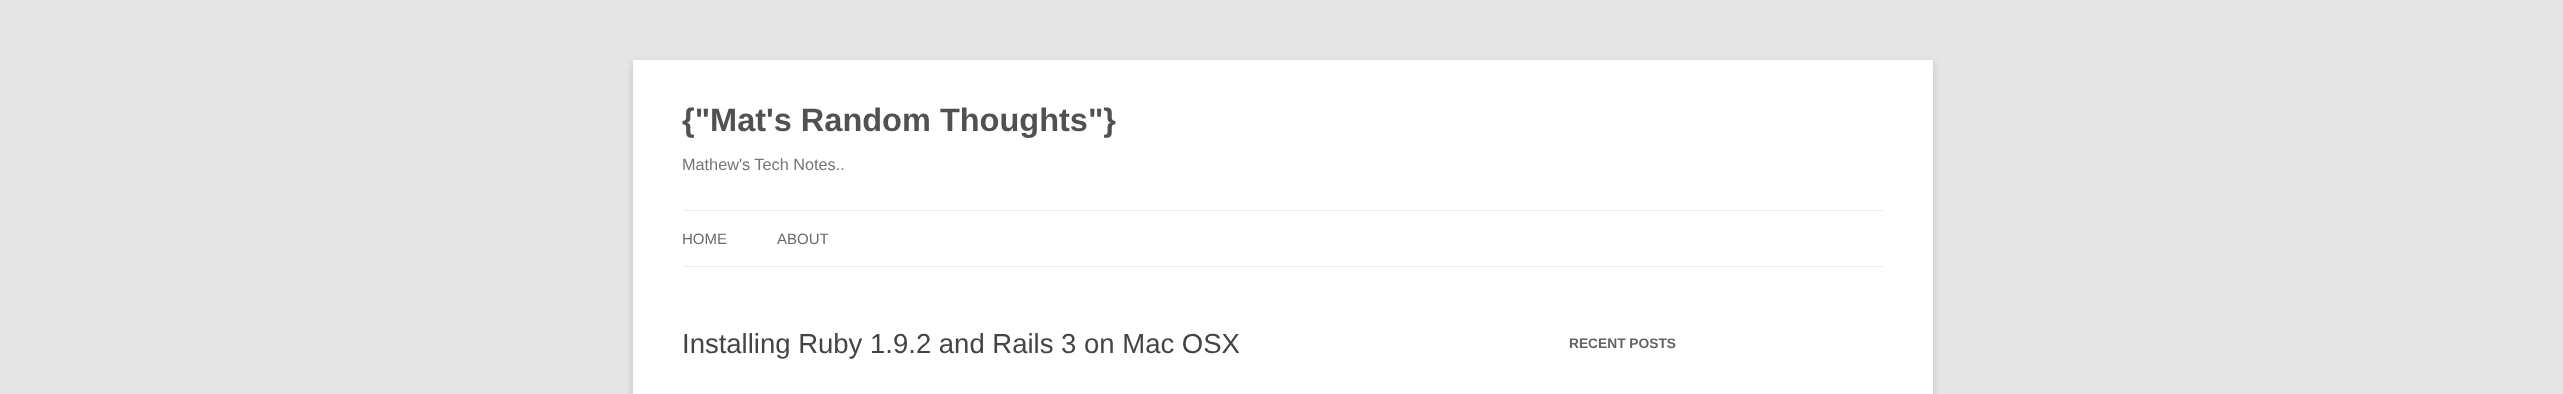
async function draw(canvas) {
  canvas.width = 2563;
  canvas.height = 394;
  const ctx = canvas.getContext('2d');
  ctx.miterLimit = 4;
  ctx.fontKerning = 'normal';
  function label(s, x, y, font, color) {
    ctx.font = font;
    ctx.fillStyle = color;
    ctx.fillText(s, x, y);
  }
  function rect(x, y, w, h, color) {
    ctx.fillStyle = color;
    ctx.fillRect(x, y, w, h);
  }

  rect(0, 0, 2563, 394, '#e6e6e6');
  ctx.fillStyle = '#6464644d';
  ctx.filter = 'blur(4px)';
  ctx.beginPath();
  ctx.rect(633, 63, 1300, 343);
  ctx.fill();
  ctx.filter = 'none';
  rect(633, 60, 1300, 334, '#fff');
  label('{"Mat\'s Random Thoughts"}', 682, 131, 'bold 32.5px Liberation Sans', '#515151');
  label('Mathew\'s Tech Notes..', 682, 170, '16.25px Liberation Sans', '#757575');
  rect(683, 210, 1200, 1, '#ededed');
  rect(683, 266, 1200, 1, '#ededed');
  label('HOME', 682, 244, '15px Liberation Sans', '#6a6a6a');
  label('ABOUT', 777, 244, '15px Liberation Sans', '#6a6a6a');
  label('Installing Ruby 1.9.2 and Rails 3 on Mac OSX', 682, 353, '27.5px Liberation Sans', '#444');
  label('RECENT POSTS', 1569, 348, 'bold 13.75px Liberation Sans', '#636363');
}

draw(document.querySelector('canvas'));
